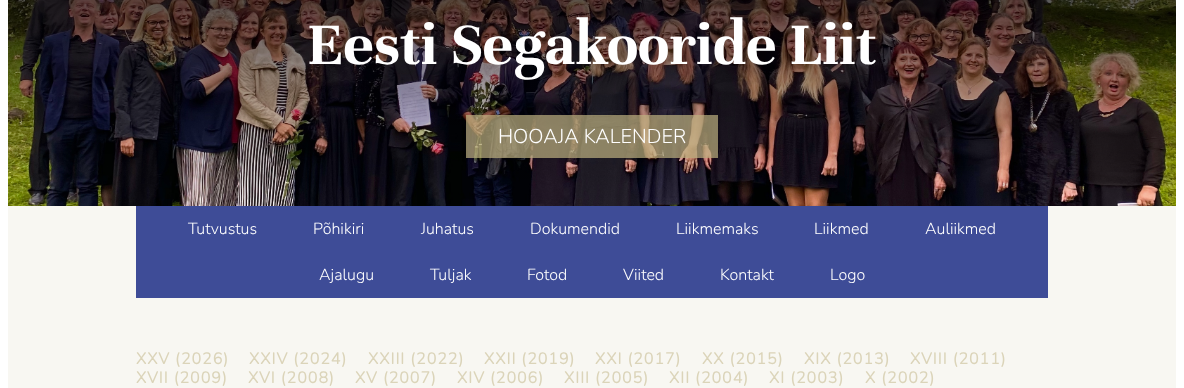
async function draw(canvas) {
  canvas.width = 1184;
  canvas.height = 388;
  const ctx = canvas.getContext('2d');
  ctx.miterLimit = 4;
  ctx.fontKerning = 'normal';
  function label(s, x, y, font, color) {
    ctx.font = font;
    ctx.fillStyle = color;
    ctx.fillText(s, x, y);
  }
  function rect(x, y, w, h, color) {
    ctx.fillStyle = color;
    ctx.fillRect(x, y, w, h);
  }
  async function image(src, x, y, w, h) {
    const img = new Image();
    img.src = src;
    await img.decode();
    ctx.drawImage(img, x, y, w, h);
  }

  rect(0, 0, 1184, 388, '#fff');
  await image('assets/img1.png', 8, 0, 1168, 206);
  label('Eesti Segakooride Liit', 307, 64, 'bold 64px Unna', '#fff');
  rect(466, 115, 252, 43, '#beb180b3');
  label('HOOAJA KALENDER', 498, 143, '200 20px Nunito', '#fff');
  rect(8, 206, 1168, 182, '#f8f7f2');
  rect(136, 206, 912, 92, '#3e4c97');
  label('Tutvustus', 188, 234, '200 16px Nunito', '#fff');
  label('Põhikiri', 313, 234, '200 16px Nunito', '#fff');
  label('Juhatus', 421, 234, '200 16px Nunito', '#fff');
  label('Dokumendid', 530, 234, '200 16px Nunito', '#fff');
  label('Liikmemaks', 676, 234, '200 16px Nunito', '#fff');
  label('Liikmed', 814, 234, '200 16px Nunito', '#fff');
  label('Auliikmed', 925, 234, '200 16px Nunito', '#fff');
  label('Ajalugu', 319, 280, '200 16px Nunito', '#fff');
  label('Tuljak', 430, 280, '200 16px Nunito', '#fff');
  label('Fotod', 527, 280, '200 16px Nunito', '#fff');
  label('Viited', 623, 280, '200 16px Nunito', '#fff');
  label('Kontakt', 720, 280, '200 16px Nunito', '#fff');
  label('Logo', 830, 280, '200 16px Nunito', '#fff');
  ctx.letterSpacing = '1px';
  label('XXV (2026)', 136, 364, 'bold 16px Nunito', '#dbd4b9');
  label('XXIV (2024)', 249, 364, 'bold 16px Nunito', '#dbd4b9');
  label('XXIII (2022)', 368, 364, 'bold 16px Nunito', '#dbd4b9');
  label('XXII (2019)', 484, 364, 'bold 16px Nunito', '#dbd4b9');
  label('XXI (2017)', 595, 364, 'bold 16px Nunito', '#dbd4b9');
  label('XX (2015)', 702, 364, 'bold 16px Nunito', '#dbd4b9');
  label('XIX (2013)', 804, 364, 'bold 16px Nunito', '#dbd4b9');
  label('XVIII (2011)', 910, 364, 'bold 16px Nunito', '#dbd4b9');
  label('XVII (2009)', 136, 383, 'bold 16px Nunito', '#dbd4b9');
  label('XVI (2008)', 248, 383, 'bold 16px Nunito', '#dbd4b9');
  label('XV (2007)', 355, 383, 'bold 16px Nunito', '#dbd4b9');
  label('XIV (2006)', 457, 383, 'bold 16px Nunito', '#dbd4b9');
  label('XIII (2005)', 564, 383, 'bold 16px Nunito', '#dbd4b9');
  label('XII (2004)', 669, 383, 'bold 16px Nunito', '#dbd4b9');
  label('XI (2003)', 769, 383, 'bold 16px Nunito', '#dbd4b9');
  label('X (2002)', 865, 383, 'bold 16px Nunito', '#dbd4b9');
}

draw(document.querySelector('canvas'));
